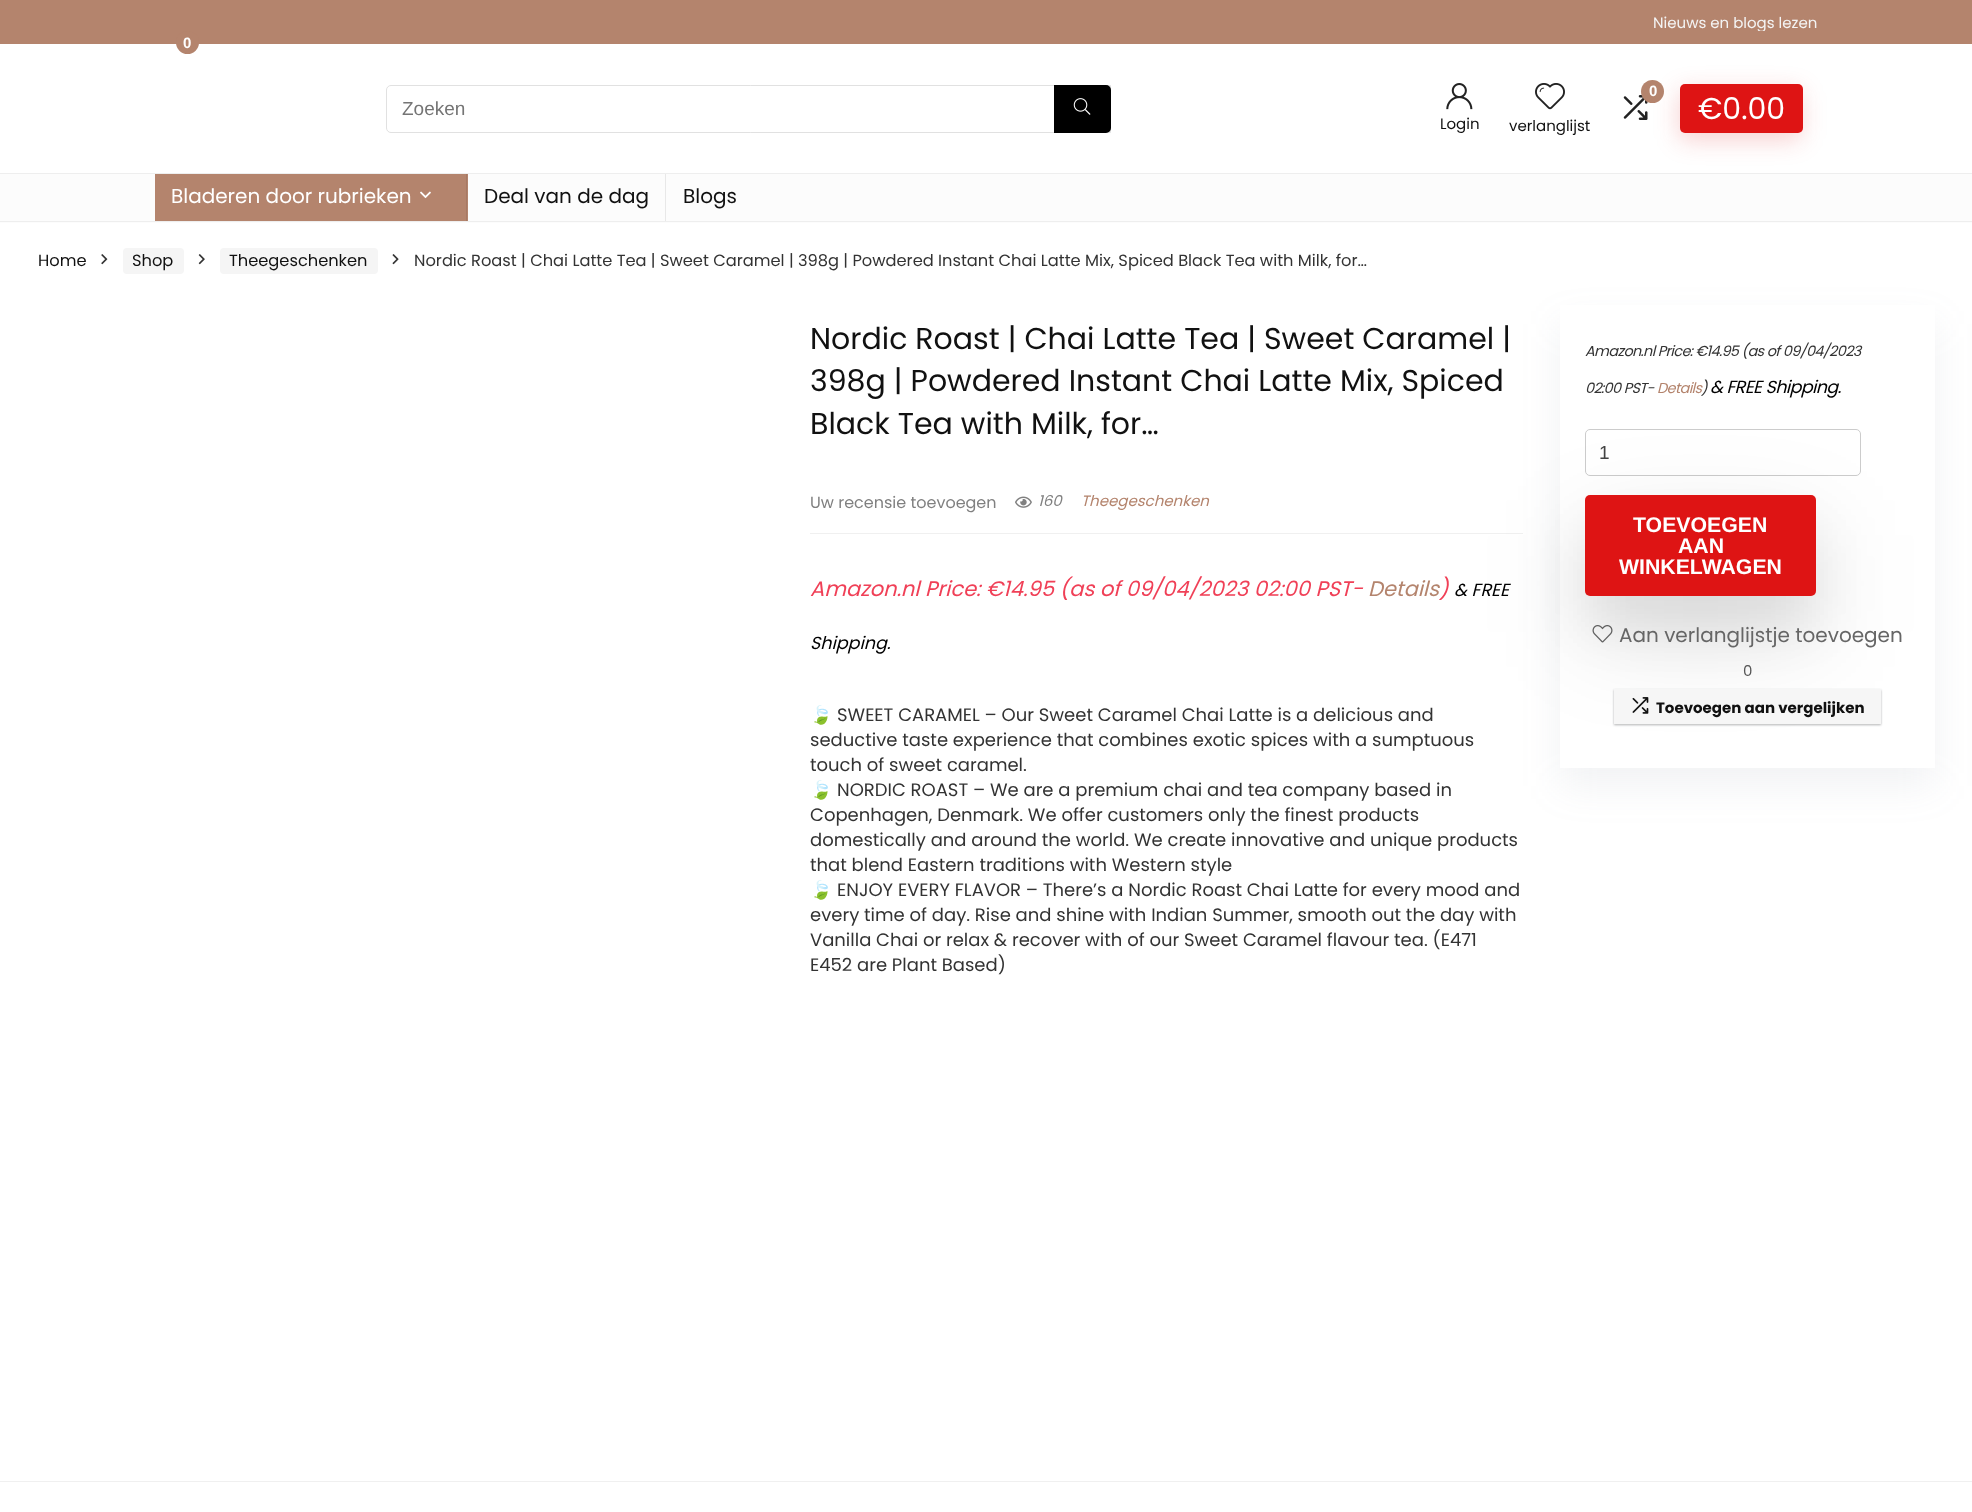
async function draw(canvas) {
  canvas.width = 1972;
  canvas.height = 1512;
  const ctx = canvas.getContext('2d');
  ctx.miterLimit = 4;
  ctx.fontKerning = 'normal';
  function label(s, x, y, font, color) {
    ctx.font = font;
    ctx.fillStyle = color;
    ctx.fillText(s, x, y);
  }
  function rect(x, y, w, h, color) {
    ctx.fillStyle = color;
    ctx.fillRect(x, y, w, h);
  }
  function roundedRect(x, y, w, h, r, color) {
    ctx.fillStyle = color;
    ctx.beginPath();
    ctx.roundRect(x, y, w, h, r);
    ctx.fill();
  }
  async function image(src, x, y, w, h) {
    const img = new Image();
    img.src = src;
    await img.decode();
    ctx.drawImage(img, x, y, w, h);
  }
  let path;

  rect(0, 0, 1972, 1512, '#fff');
  rect(0, 0, 1972, 44, '#b4846d');
  ctx.save();
  ctx.beginPath();
  ctx.rect(1654, 13, 164, 18);
  ctx.clip();
  label('Nieuws en blogs lezen', 1653, 28, '15px Poppins', '#f4f4f4');
  ctx.restore();
  rect(0, 174, 1972, 49, '#fcfcfc');
  rect(0, 173, 1972, 1, '#eee');
  ctx.fillStyle = '#de141433';
  ctx.filter = 'blur(12px)';
  ctx.beginPath();
  ctx.roundRect(1679, 91, 122, 49, 5);
  ctx.fill();
  ctx.filter = 'none';
  roundedRect(1680, 84, 123, 49, 5, '#de1414');
  ctx.fillStyle = '#b4846d';
  ctx.beginPath();
  ctx.arc(187.5, 42.5, 11.5, 0, 2 * Math.PI);
  ctx.fill();
  label('0', 183, 48, 'bold 15px Liberation Sans', '#fff');
  label('€0.00', 1698, 119, '30px Poppins', '#fff');
  await image('assets/img1.png', 1623, 95, 25, 25);
  ctx.fillStyle = '#b4846d';
  ctx.beginPath();
  ctx.arc(1652.5, 91.5, 11.5, 0, 2 * Math.PI);
  ctx.fill();
  label('0', 1649, 96, 'bold 15px Liberation Sans', '#fff');
  await image('assets/img2.png', 1446, 83, 27, 27);
  label('Login', 1440, 129, '15px Poppins', '#111');
  await image('assets/img3.png', 1535, 83, 30, 27);
  label('verlanglijst', 1509, 131, '15px Poppins', '#111');
  ctx.beginPath();
  ctx.roundRect(386.5, 85.5, 724, 47, [4.5, 0, 0, 4.5]);
  ctx.strokeStyle = '#e1e1e1';
  ctx.stroke();
  label('Zoeken', 402, 115, '19px Liberation Sans', '#757575');
  ctx.fillStyle = '#000';
  ctx.beginPath();
  ctx.roundRect(1054, 85, 57, 48, [0, 5, 5, 0]);
  ctx.fill();
  await image('assets/img4.png', 1073, 98, 18, 17);
  rect(0, 221, 1972, 1, '#eee');
  rect(155, 174, 313, 47, '#b4846d');
  rect(466, 174, 1, 47, '#a67964');
  label('Bladeren door rubrieken', 171, 203, '20px Poppins', '#fff');
  await image('assets/img5.png', 420, 191, 11, 8);
  rect(665, 174, 1, 47, '#e8e8e8');
  label('Deal van de dag', 484, 203, '20px Poppins', '#111');
  label('Blogs', 683, 203, '20px Poppins', '#111');
  rect(0, 1481, 1972, 1, '#f0f0f0');
  label('Home', 38, 266, '16.25px Poppins', '#111');
  await image('assets/img6.png', 101, 254, 7, 11);
  roundedRect(123, 248, 61, 26, 4, '#f5f5f5');
  label('Shop', 132, 266, '16.25px Poppins', '#111');
  await image('assets/img7.png', 198, 254, 7, 11);
  roundedRect(220, 248, 158, 26, 4, '#f5f5f5');
  label('Theegeschenken', 229, 266, '16.25px Poppins', '#111');
  await image('assets/img8.png', 392, 254, 7, 11);
  label('Nordic Roast | Chai Latte Tea | Sweet Caramel | 398g | Powdered Instant Chai Latte Mix, Spiced Black Tea with Milk, for…', 414, 266, '16.25px Poppins', '#333');
  ctx.save();
  path = new Path2D('M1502 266H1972V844H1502ZM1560 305H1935V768H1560Z');
  ctx.clip(path, 'evenodd');
  ctx.fillStyle = '#777b921a';
  ctx.filter = 'blur(19px)';
  ctx.beginPath();
  ctx.rect(1560, 324, 375, 462);
  ctx.fill();
  ctx.filter = 'none';
  ctx.restore();
  label('Nordic Roast | Chai Latte Tea | Sweet Caramel |', 810, 349, '30px Poppins', '#111');
  label('398g | Powdered Instant Chai Latte Mix, Spiced', 810, 391, '30px Poppins', '#111');
  label('Black Tea with Milk, for…', 810, 434, '30px Poppins', '#111');
  label('Uw recensie toevoegen', 810, 508, '16px Poppins', '#808080');
  await image('assets/img9.png', 1015, 496, 17, 12);
  label('160', 1038, 506, 'italic 15px Poppins', '#808080');
  label('Theegeschenken', 1081, 506, 'italic 15px Poppins', '#b4846d');
  rect(810, 533, 713, 1, '#f0f0f0');
  label('Amazon.nl Price: €14.95 (as of 09/04/2023 02:00 PST-', 810, 596, 'italic 21px Poppins', '#f04057');
  label('Details', 1368, 596, 'italic 21px Poppins', '#b4846d');
  label(')', 1439, 596, 'italic 21px Poppins', '#f04057');
  label('& FREE', 1454, 596, 'italic 17.5px Poppins', '#000');
  label('Shipping.', 810, 649, 'italic 17.5px Poppins', '#000');
  ctx.save();
  ctx.beginPath();
  ctx.rect(810, 305, 713, 724);
  ctx.clip();
  label('🍃', 810, 721, '18px Noto Color Emoji', '#333');
  ctx.restore();
  label('SWEET CARAMEL – Our Sweet Caramel Chai Latte is a delicious and', 837, 721, '18px Poppins', '#333');
  label('seductive taste experience that combines exotic spices with a sumptuous', 810, 746, '18px Poppins', '#333');
  label('touch of sweet caramel.', 810, 771, '18px Poppins', '#333');
  ctx.save();
  ctx.beginPath();
  ctx.rect(810, 305, 713, 724);
  ctx.clip();
  label('🍃', 810, 796, '18px Noto Color Emoji', '#333');
  ctx.restore();
  label('NORDIC ROAST – We are a premium chai and tea company based in', 837, 796, '18px Poppins', '#333');
  label('Copenhagen, Denmark. We offer customers only the finest products', 810, 821, '18px Poppins', '#333');
  label('domestically and around the world. We create innovative and unique products', 810, 846, '18px Poppins', '#333');
  label('that blend Eastern traditions with Western style', 810, 871, '18px Poppins', '#333');
  ctx.save();
  ctx.beginPath();
  ctx.rect(810, 305, 713, 724);
  ctx.clip();
  label('🍃', 810, 896, '18px Noto Color Emoji', '#333');
  ctx.restore();
  label('ENJOY EVERY FLAVOR – There’s a Nordic Roast Chai Latte for every mood and', 837, 896, '18px Poppins', '#333');
  label('every time of day. Rise and shine with Indian Summer, smooth out the day with', 810, 921, '18px Poppins', '#333');
  label('Vanilla Chai or relax & recover with of our Sweet Caramel flavour tea. (E471', 810, 946, '18px Poppins', '#333');
  label('E452 are Plant Based)', 810, 971, '18px Poppins', '#333');
  ctx.letterSpacing = '-0.6px';
  label('Amazon.nl Price: €14.95 (as of 09/04/2023', 1585, 356, 'italic 14.4px Poppins', '#333');
  label('02:00 PST-', 1585, 393, 'italic 14.4px Poppins', '#333');
  label('Details', 1657, 393, 'italic 14.4px Poppins', '#b4846d');
  label(')', 1701, 393, 'italic 14.4px Poppins', '#333');
  label('& FREE Shipping.', 1710, 393, 'italic 17.5px Poppins', '#000');
  ctx.beginPath();
  ctx.roundRect(1585.5, 429.5, 275, 46, 4.5);
  ctx.strokeStyle = '#ccc';
  ctx.stroke();
  ctx.letterSpacing = '0px';
  label('1', 1599, 459, '19px Liberation Sans', '#444');
  await image('assets/img10.png', 1592, 625, 21, 18);
  ctx.fillStyle = '#0000001f';
  ctx.filter = 'blur(50px)';
  ctx.beginPath();
  ctx.roundRect(1585, 533, 231, 101, 5);
  ctx.fill();
  ctx.filter = 'none';
  ctx.fillStyle = '#0000000f';
  ctx.filter = 'blur(24px)';
  ctx.beginPath();
  ctx.roundRect(1585, 530, 231, 101, 5);
  ctx.fill();
  ctx.filter = 'none';
  roundedRect(1585, 495, 231, 101, 5, '#de1414');
  label('TOEVOEGEN', 1633, 532, 'bold 21.25px Liberation Sans', '#fff');
  label('AAN', 1678, 553, 'bold 21.25px Liberation Sans', '#fff');
  label('WINKELWAGEN', 1619, 574, 'bold 21.25px Liberation Sans', '#fff');
  label('Aan verlanglijstje toevoegen', 1619, 642, '20px Poppins', '#666');
  label('0', 1743, 676, '15px Poppins', '#555');
  ctx.fillStyle = '#00000014';
  ctx.filter = 'blur(1px)';
  ctx.beginPath();
  ctx.rect(1614, 690, 267, 35);
  ctx.fill();
  ctx.filter = 'none';
  ctx.fillStyle = '#3c40434d';
  ctx.filter = 'blur(1px)';
  ctx.beginPath();
  ctx.rect(1614, 690, 267, 35);
  ctx.fill();
  ctx.filter = 'none';
  rect(1614, 689, 267, 35, '#f6f6f6');
  await image('assets/img11.png', 1632, 697, 17, 17);
  label('Toevoegen aan vergelijken', 1656, 713, 'bold 15px Poppins', '#111');
}

draw(document.querySelector('canvas'));
